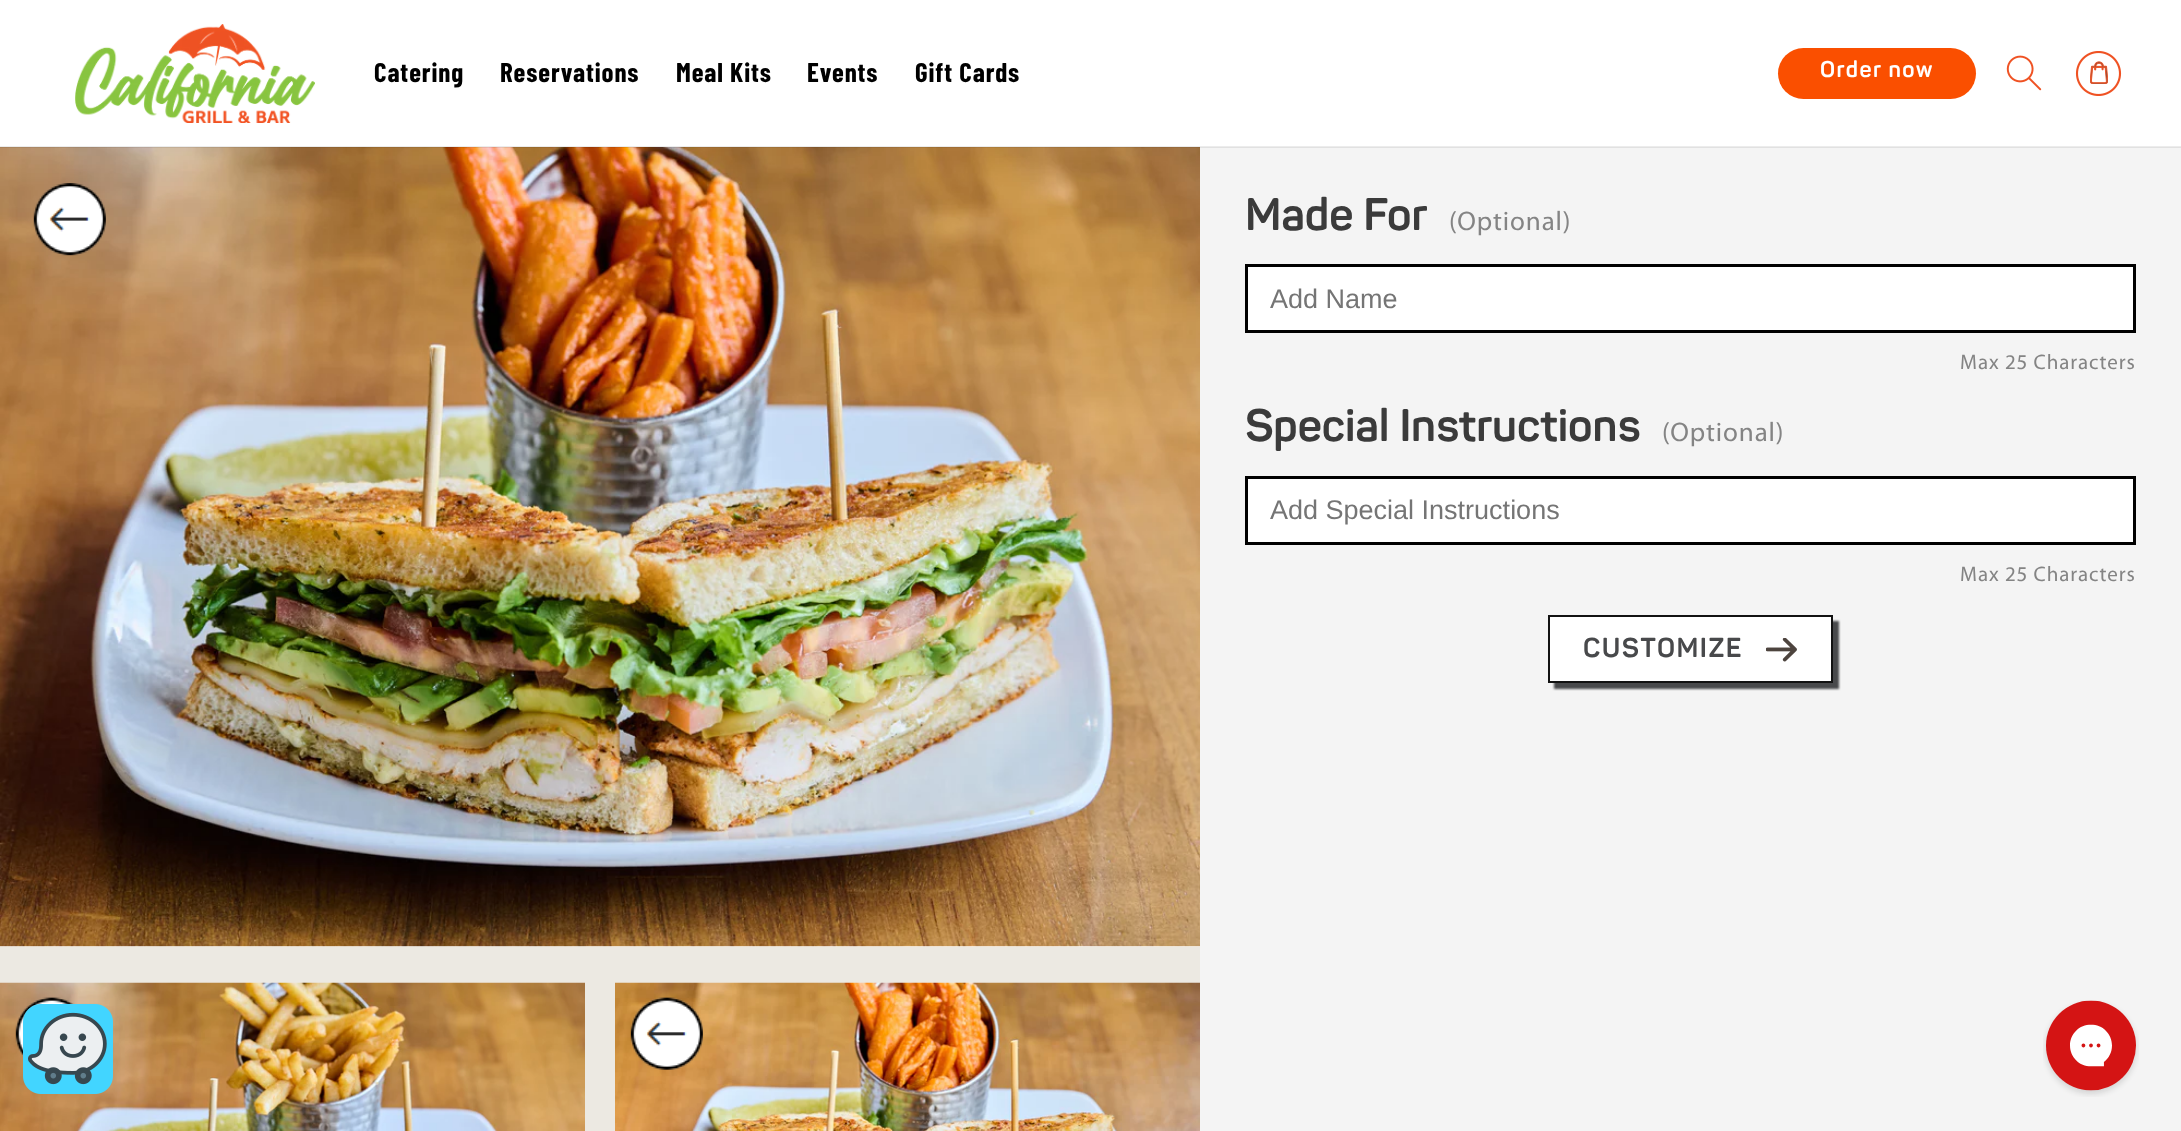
async function draw(canvas) {
  canvas.width = 2181;
  canvas.height = 1131;
  const ctx = canvas.getContext('2d');
  ctx.miterLimit = 4;
  ctx.fontKerning = 'normal';
  function label(s, x, y, font, color) {
    ctx.font = font;
    ctx.fillStyle = color;
    ctx.fillText(s, x, y);
  }
  function rect(x, y, w, h, color) {
    ctx.fillStyle = color;
    ctx.fillRect(x, y, w, h);
  }
  function roundedRect(x, y, w, h, r, color) {
    ctx.fillStyle = color;
    ctx.beginPath();
    ctx.roundRect(x, y, w, h, r);
    ctx.fill();
  }
  async function image(src, x, y, w, h) {
    const img = new Image();
    img.src = src;
    await img.decode();
    ctx.drawImage(img, x, y, w, h);
  }

  rect(0, 0, 2181, 1131, '#fff');
  await image('assets/img4.png', 0, 147, 1200, 800);
  rect(1200, 147, 981, 984, '#f4f4f4');
  rect(0, 146, 2181, 2, '#12121214');
  await image('assets/img1.png', 75, 24, 240, 99);
  ctx.letterSpacing = '0.9px';
  label('Catering', 374, 82, 'bold 27px Barlow Condensed', '#000');
  label('Reservations', 500, 82, 'bold 27px Barlow Condensed', '#000');
  label('Meal Kits', 676, 82, 'bold 27px Barlow Condensed', '#000');
  label('Events', 807, 82, 'bold 27px Barlow Condensed', '#000');
  label('Gift Cards', 915, 82, 'bold 27px Barlow Condensed', '#000');
  roundedRect(1778, 48, 198, 51, 25.5, '#fa4f00');
  ctx.letterSpacing = '1.5px';
  label('Order now', 1820, 77, 'bold 22.5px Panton', '#fff');
  await image('assets/img2.png', 2006, 55, 36, 36);
  await image('assets/img3.png', 2075, 51, 47, 45);
  rect(0, 947, 1200, 184, '#ece9e2');
  await image('assets/img5.png', 33, 183, 73, 73);
  await image('assets/img6.png', 0, 982, 585, 149);
  await image('assets/img7.png', 15, 997, 60, 60);
  await image('assets/img8.png', 615, 982, 585, 149);
  await image('assets/img9.png', 630, 997, 73, 73);
  ctx.letterSpacing = '0px';
  label('Made For', 1245, 230, 'bold 45px Panton', '#3b3b3b');
  ctx.letterSpacing = '0.9px';
  label('(Optional)', 1449, 230, '27px Myriad', '#848484');
  ctx.fillStyle = '#fff';
  ctx.beginPath();
  ctx.rect(1246.5, 265.5, 888, 66);
  ctx.fill();
  ctx.strokeStyle = '#000';
  ctx.lineWidth = 3;
  ctx.stroke();
  ctx.letterSpacing = '0px';
  label('Add Name', 1270, 308, '27px Liberation Sans', '#757575');
  ctx.letterSpacing = '0.9px';
  label('Max 25 Characters', 1960, 369, '21px Myriad', '#848484');
  ctx.letterSpacing = '0px';
  label('Special Instructions', 1245, 441, 'bold 45px Panton', '#3b3b3b');
  ctx.letterSpacing = '0.9px';
  label('(Optional)', 1662, 441, '27px Myriad', '#848484');
  ctx.fillStyle = '#fff';
  ctx.beginPath();
  ctx.rect(1246.5, 477.5, 888, 66);
  ctx.fill();
  ctx.stroke();
  ctx.letterSpacing = '0px';
  label('Add Special Instructions', 1270, 519, '27px Liberation Sans', '#757575');
  ctx.letterSpacing = '0.9px';
  label('Max 25 Characters', 1960, 581, '21px Myriad', '#848484');
  ctx.fillStyle = '#48494b';
  ctx.filter = 'blur(1px)';
  ctx.beginPath();
  ctx.rect(1554, 621, 285, 68);
  ctx.fill();
  ctx.filter = 'none';
  rect(1550, 617, 281, 64, '#fff');
  await image('assets/img10.png', 1766, 638, 31, 24);
  ctx.strokeStyle = '#121212';
  ctx.lineWidth = 2;
  ctx.strokeRect(1549, 616, 283, 66);
  ctx.letterSpacing = '1.5px';
  label('CUSTOMIZE', 1583, 657, 'bold 27px Panton', '#48494b');
  await image('assets/img11.png', 23, 1004, 90, 90);
  await image('assets/img12.png', 2043, 1000, 96, 97);
}

draw(document.querySelector('canvas'));
